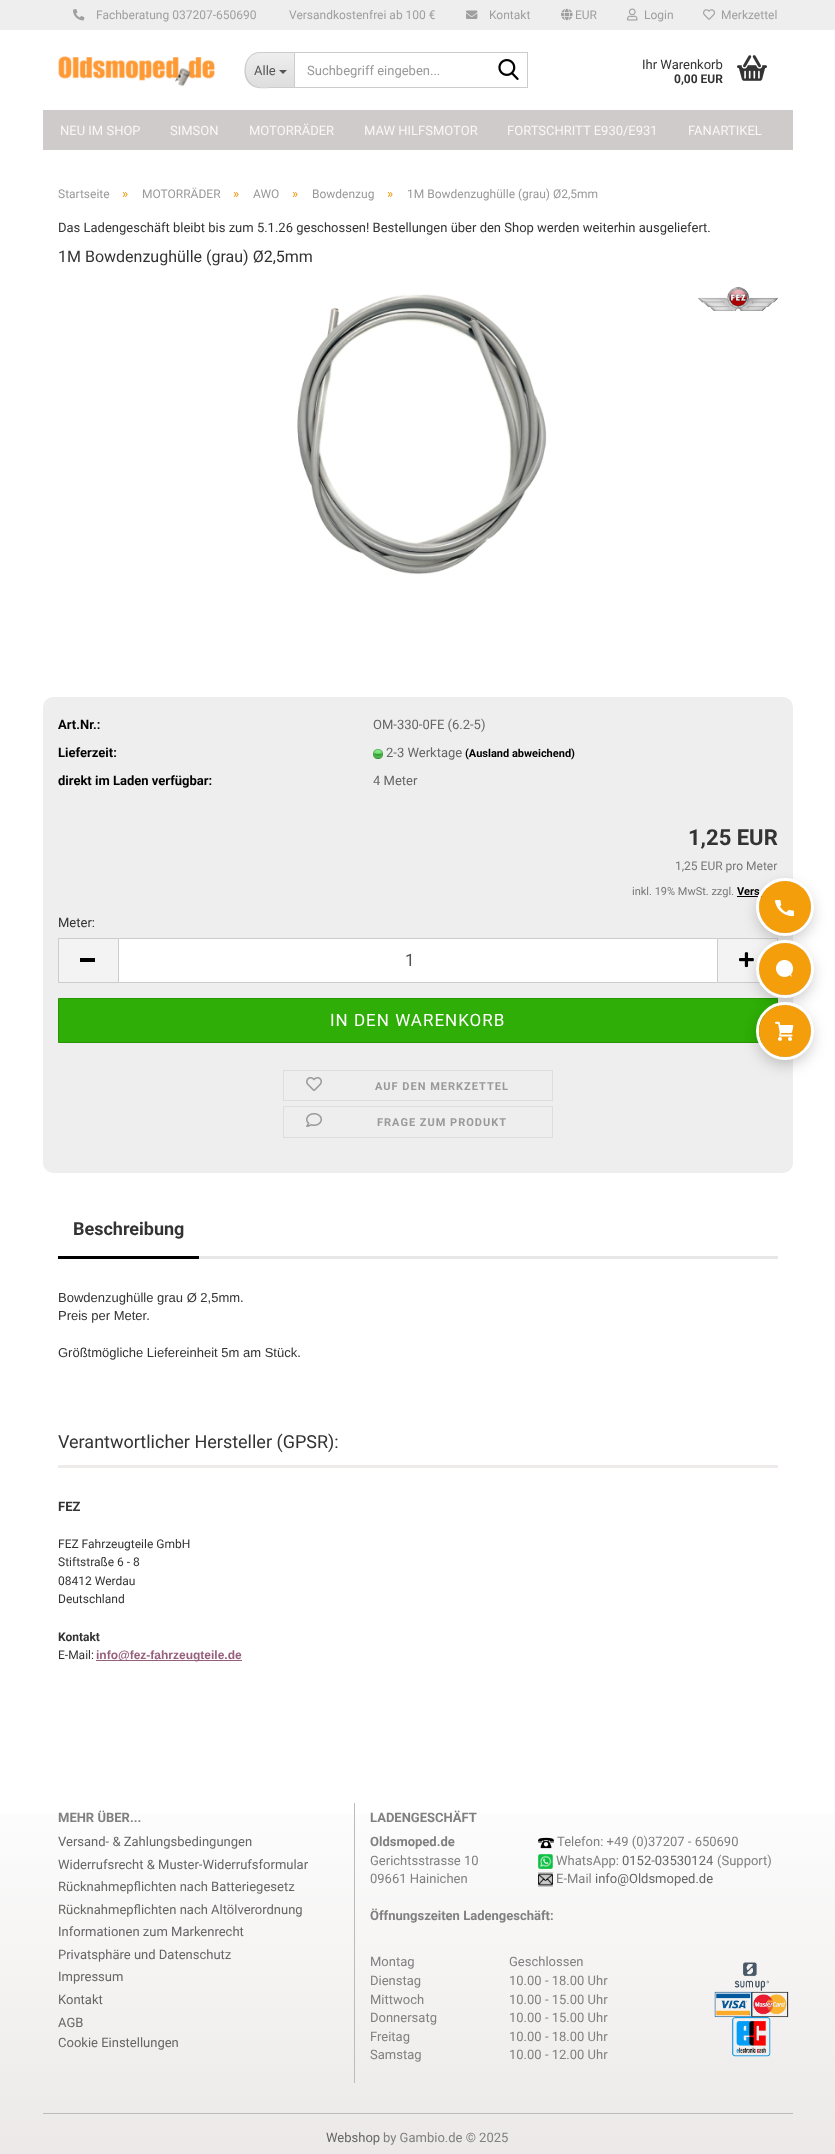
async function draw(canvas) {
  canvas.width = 835;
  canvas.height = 2154;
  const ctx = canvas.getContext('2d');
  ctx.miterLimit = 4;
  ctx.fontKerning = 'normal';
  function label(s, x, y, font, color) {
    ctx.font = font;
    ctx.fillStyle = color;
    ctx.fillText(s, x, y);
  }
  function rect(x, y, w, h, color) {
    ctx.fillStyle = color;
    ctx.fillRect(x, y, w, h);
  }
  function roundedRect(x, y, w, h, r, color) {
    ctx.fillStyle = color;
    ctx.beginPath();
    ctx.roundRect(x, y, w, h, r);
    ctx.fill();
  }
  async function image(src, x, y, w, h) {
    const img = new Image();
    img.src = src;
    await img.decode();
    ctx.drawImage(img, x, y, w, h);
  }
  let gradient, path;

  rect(0, 0, 835, 2154, '#fff');
  rect(0, 0, 835, 30, '#eee');
  await image('assets/img1.png', 73, 9, 12, 12);
  label('Fachberatung 037207-650690', 96, 19, '12px Roboto', '#9f9f9f');
  label('Versandkostenfrei ab 100 €', 289, 19, '12px Roboto', '#9f9f9f');
  await image('assets/img2.png', 466, 10, 12, 9);
  label('Kontakt', 489, 19, '12px Roboto', '#9f9f9f');
  await image('assets/img3.png', 561, 8, 12, 13);
  label('EUR', 575, 19, '12px Roboto', '#9f9f9f');
  await image('assets/img4.png', 627, 8, 11, 13);
  label('Login', 644, 19, '12px Roboto', '#9f9f9f');
  await image('assets/img5.png', 703, 9, 12, 11);
  label('Merkzettel', 721, 19, '12px Roboto', '#9f9f9f');
  await image('assets/img6.png', 58, 56, 157, 31);
  ctx.save();
  ctx.beginPath();
  ctx.roundRect(245, 52, 49, 36, [15, 0, 0, 15]);
  ctx.clip();
  gradient = ctx.createLinearGradient(270, 53, 270, 87);
  gradient.addColorStop(0, '#eee');
  gradient.addColorStop(1, '#dedede');
  ctx.fillStyle = gradient;
  ctx.fillRect(245, 53, 49, 34);
  ctx.restore();
  ctx.fillStyle = '#ccc';
  path = new Path2D('M260 52H294V88H271C266 88 259 89 254 87C239 81 242 52 260 52ZM260 53H294V87H271C266 87 260 88 255 86C241 80 243 53 260 53Z');
  ctx.fill(path, 'evenodd');
  label('Alle', 254, 75, '13px Roboto', '#555');
  path = new Path2D('M279 70H287L283 74Z');
  ctx.fill(path);
  ctx.strokeStyle = '#ccc';
  ctx.strokeRect(294.5, 52.5, 233, 35);
  label('Suchbegriff eingeben...', 307, 75, '13px Roboto', '#999');
  await image('assets/img7.png', 498, 59, 21, 21);
  label('Ihr Warenkorb', 642, 69, '13px Roboto', '#333');
  label('0,00 EUR', 674, 83, 'bold 12px Roboto', '#333');
  await image('assets/img8.png', 737, 55, 30, 26);
  rect(43, 110, 750, 40, '#cfcbcb');
  label('NEU IM SHOP', 60, 135, '13px Roboto', '#fbf7f7');
  label('SIMSON', 170, 135, '13px Roboto', '#fbf7f7');
  label('MOTORRÄDER', 249, 135, '13px Roboto', '#fbf7f7');
  label('MAW HILFSMOTOR', 364, 135, '13px Roboto', '#fbf7f7');
  label('FORTSCHRITT E930/E931', 507, 135, '13px Roboto', '#fbf7f7');
  label('FANARTIKEL', 688, 135, '13px Roboto', '#fbf7f7');
  label('Startseite', 58, 198, '12px Roboto', '#999');
  label('»', 122, 198, '13px Roboto', '#f2970b');
  label('MOTORRÄDER', 142, 198, '12px Roboto', '#999');
  label('»', 233, 198, '13px Roboto', '#f2970b');
  label('AWO', 253, 198, '12px Roboto', '#999');
  label('»', 292, 198, '13px Roboto', '#f2970b');
  label('Bowdenzug', 312, 198, '12px Roboto', '#999');
  label('»', 387, 198, '13px Roboto', '#f2970b');
  label('1M Bowdenzughülle (grau) Ø2,5mm', 407, 198, '12px Roboto', '#999');
  label('Das Ladengeschäft bleibt bis zum 5.1.26 geschossen! Bestellungen über den Shop werden weiterhin ausgeliefert.', 58, 232, '13px Roboto', '#333');
  label('1M Bowdenzughülle (grau) Ø2,5mm', 58, 262, '16px Roboto', '#333');
  await image('assets/img9.png', 297, 294, 250, 281);
  await image('assets/img10.png', 698, 287, 80, 24);
  roundedRect(43, 697, 750, 476, 10, '#eee');
  label('Art.Nr.:', 58, 729, 'bold 13px Roboto', '#000');
  label('OM-330-0FE (6.2-5)', 373, 729, '13px Roboto', '#666');
  label('Lieferzeit:', 58, 757, 'bold 13px Roboto', '#000');
  await image('assets/img11.png', 373, 749, 10, 10);
  label('2-3 Werktage', 386, 757, '13px Roboto', '#666');
  label('(Ausland abweichend)', 465, 757, 'bold 11px Roboto', '#000');
  label('direkt im Laden verfügbar:', 58, 785, 'bold 13px Roboto', '#000');
  label('4 Meter', 373, 785, '13px Roboto', '#666');
  label('1,25 EUR', 688, 845, 'bold 22px Roboto', '#333');
  label('1,25 EUR pro Meter', 675, 870, '12px Roboto', '#777');
  label('inkl. 19% MwSt. zzgl.', 632, 895, '11px Roboto', '#777');
  label('Vers', 737, 895, 'bold 11px Roboto', '#000');
  rect(737, 896, 25, 1, '#000');
  label('Meter:', 58, 927, '13px Roboto', '#333');
  rect(59, 939, 59, 43, '#f3f3f3');
  rect(58, 938, 60, 1, '#ccc');
  rect(58, 982, 60, 1, '#ccc');
  rect(58, 938, 1, 45, '#ccc');
  rect(80, 958, 15, 4, '#000');
  ctx.fillStyle = '#fff';
  ctx.beginPath();
  ctx.rect(118.5, 938.5, 599, 44);
  ctx.fill();
  ctx.stroke();
  label('1', 405, 966, '17px Roboto', '#555');
  rect(718, 939, 59, 43, '#f3f3f3');
  rect(718, 938, 60, 1, '#ccc');
  rect(777, 938, 1, 7, '#ccc');
  rect(718, 982, 46, 1, '#ccc');
  await image('assets/img12.png', 739, 952, 15, 16);
  ctx.fillStyle = '#2eae06';
  ctx.beginPath();
  ctx.rect(58.5, 998.5, 719, 44);
  ctx.fill();
  ctx.strokeStyle = '#279505';
  ctx.stroke();
  ctx.letterSpacing = '1px';
  label('IN DEN WARENKORB', 330, 1026, '17px Roboto', '#fff');
  ctx.strokeStyle = '#ddd';
  ctx.strokeRect(283.5, 1070.5, 269, 30);
  await image('assets/img13.png', 306, 1077, 16, 14);
  label('AUF DEN MERKZETTEL', 375, 1090, 'bold 11px Roboto', '#999');
  ctx.strokeRect(283.5, 1106.5, 269, 31);
  await image('assets/img14.png', 306, 1113, 16, 14);
  label('FRAGE ZUM PRODUKT', 377, 1126, 'bold 11px Roboto', '#999');
  rect(199, 1256, 579, 3, '#e7e7e7');
  rect(58, 1256, 141, 3, '#000');
  ctx.letterSpacing = '0px';
  label('Beschreibung', 73, 1235, 'bold 18px Roboto', '#333');
  label('Bowdenzughülle grau Ø 2,5mm.', 58, 1302, '13px Liberation Sans', '#333');
  label('Preis per Meter.', 58, 1320, '13px Liberation Sans', '#333');
  label('Größtmögliche Liefereinheit 5m am Stück.', 58, 1357, '13px Liberation Sans', '#333');
  rect(58, 1465, 720, 3, '#f0ebeb');
  label('Verantwortlicher Hersteller (GPSR):', 58, 1448, '18px Roboto', '#333');
  label('FEZ', 58, 1511, 'bold 13px Roboto', '#333');
  label('FEZ Fahrzeugteile GmbH', 58, 1548, '12px Roboto', '#333');
  label('Stiftstraße 6 - 8', 58, 1566, '12px Roboto', '#333');
  label('08412 Werdau', 58, 1585, '12px Roboto', '#333');
  label('Deutschland', 58, 1603, '12px Roboto', '#333');
  label('Kontakt', 58, 1641, 'bold 12px Roboto', '#333');
  label('E-Mail:', 58, 1659, '12px Roboto', '#333');
  rect(96, 1660, 146, 1, '#96607d');
  label('info@fez-fahrzeugteile.de', 96, 1659, 'bold 12px Liberation Sans', '#96607d');
  gradient = ctx.createLinearGradient(418, 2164, 418, 1773);
  gradient.addColorStop(0, '#ebe8e7');
  gradient.addColorStop(1, '#fff');
  ctx.fillStyle = gradient;
  ctx.fillRect(0, 1814, 835, 340);
  rect(43, 2113, 750, 1, '#bbb');
  rect(354, 1803, 1, 280, '#bbb');
  label('MEHR ÜBER...', 58, 1822, 'bold 13px Roboto', '#818080');
  label('Versand- & Zahlungsbedingungen', 58, 1846, '13px Roboto', '#666');
  label('Widerrufsrecht & Muster-Widerrufsformular', 58, 1869, '13px Roboto', '#666');
  label('Rücknahmepflichten nach Batteriegesetz', 58, 1891, '13px Roboto', '#666');
  label('Rücknahmepflichten nach Altölverordnung', 58, 1914, '13px Roboto', '#666');
  label('Informationen zum Markenrecht', 58, 1936, '13px Roboto', '#666');
  label('Privatsphäre und Datenschutz', 58, 1959, '13px Roboto', '#666');
  label('Impressum', 58, 1981, '13px Roboto', '#666');
  label('Kontakt', 58, 2004, '13px Roboto', '#666');
  label('AGB', 58, 2027, '13px Roboto', '#666');
  label('Cookie Einstellungen', 58, 2047, '13px Roboto', '#666');
  label('LADENGESCHÄFT', 370, 1822, 'bold 13px Roboto', '#818080');
  label('Oldsmoped.de', 370, 1846, 'bold 13px Roboto', '#818080');
  label('Gerichtsstrasse 10', 370, 1865, '13px Roboto', '#818080');
  label('09661 Hainichen', 370, 1883, '13px Roboto', '#818080');
  await image('assets/img15.png', 538, 1837, 16, 12);
  label('Telefon: +49 (0)37207 - 650690', 557, 1846, '13px Roboto', '#818080');
  await image('assets/img16.png', 538, 1854, 15, 15);
  label('WhatsApp:', 556, 1865, '13px Roboto', '#818080');
  label('0152-03530124', 622, 1865, '13px Roboto', '#666');
  label('(Support)', 717, 1865, '13px Roboto', '#818080');
  await image('assets/img17.png', 538, 1872, 15, 15);
  label('E-Mail', 556, 1883, '13px Roboto', '#818080');
  label('info@Oldsmoped.de', 595, 1883, '13px Roboto', '#666');
  label('Öffnungszeiten Ladengeschäft:', 370, 1920, 'bold 13px Roboto', '#818080');
  label('Montag', 370, 1966, '13px Roboto', '#818080');
  label('Geschlossen', 509, 1966, '13px Roboto', '#818080');
  await image('assets/img18.png', 714, 1962, 75, 95);
  label('Dienstag', 370, 1985, '13px Roboto', '#818080');
  label('10.00 - 18.00 Uhr', 509, 1985, '13px Roboto', '#818080');
  label('Mittwoch', 370, 2004, '13px Roboto', '#818080');
  label('10.00 - 15.00 Uhr', 509, 2004, '13px Roboto', '#818080');
  label('Donnersatg', 370, 2022, '13px Roboto', '#818080');
  label('10.00 - 15.00 Uhr', 509, 2022, '13px Roboto', '#818080');
  label('Freitag', 370, 2041, '13px Roboto', '#818080');
  label('10.00 - 18.00 Uhr', 509, 2041, '13px Roboto', '#818080');
  label('Samstag', 370, 2059, '13px Roboto', '#818080');
  label('10.00 - 12.00 Uhr', 509, 2059, '13px Roboto', '#818080');
  label('Webshop', 326, 2142, '13px Roboto', '#666');
  label('by Gambio.de © 2025', 383, 2142, '13px Roboto', '#818080');
  ctx.fillStyle = '#00000040';
  ctx.filter = 'blur(8px)';
  ctx.beginPath();
  ctx.roundRect(759, 887, 52, 52, 26);
  ctx.fill();
  ctx.filter = 'none';
  ctx.beginPath();
  ctx.arc(785, 907, 27.5, 0, 2 * Math.PI);
  ctx.strokeStyle = '#fff';
  ctx.lineWidth = 3;
  ctx.stroke();
  ctx.fillStyle = '#f59e0b';
  ctx.beginPath();
  ctx.arc(785, 907, 26, 0, 2 * Math.PI);
  ctx.fill();
  await image('assets/img19.png', 775, 900, 19, 17);
  ctx.fillStyle = '#00000040';
  ctx.filter = 'blur(8px)';
  ctx.beginPath();
  ctx.roundRect(759, 949, 52, 52, 26);
  ctx.fill();
  ctx.filter = 'none';
  ctx.beginPath();
  ctx.arc(785, 969, 27.5, 0, 2 * Math.PI);
  ctx.stroke();
  ctx.fillStyle = '#f59e0b';
  ctx.beginPath();
  ctx.arc(785, 969, 26, 0, 2 * Math.PI);
  ctx.fill();
  await image('assets/img20.png', 776, 960, 17, 17);
  ctx.fillStyle = '#00000040';
  ctx.filter = 'blur(8px)';
  ctx.beginPath();
  ctx.roundRect(759, 1011, 52, 52, 26);
  ctx.fill();
  ctx.filter = 'none';
  ctx.beginPath();
  ctx.arc(785, 1031, 27.5, 0, 2 * Math.PI);
  ctx.stroke();
  ctx.fillStyle = '#f59e0b';
  ctx.beginPath();
  ctx.arc(785, 1031, 26, 0, 2 * Math.PI);
  ctx.fill();
  await image('assets/img21.png', 775, 1021, 19, 20);
}

draw(document.querySelector('canvas'));
